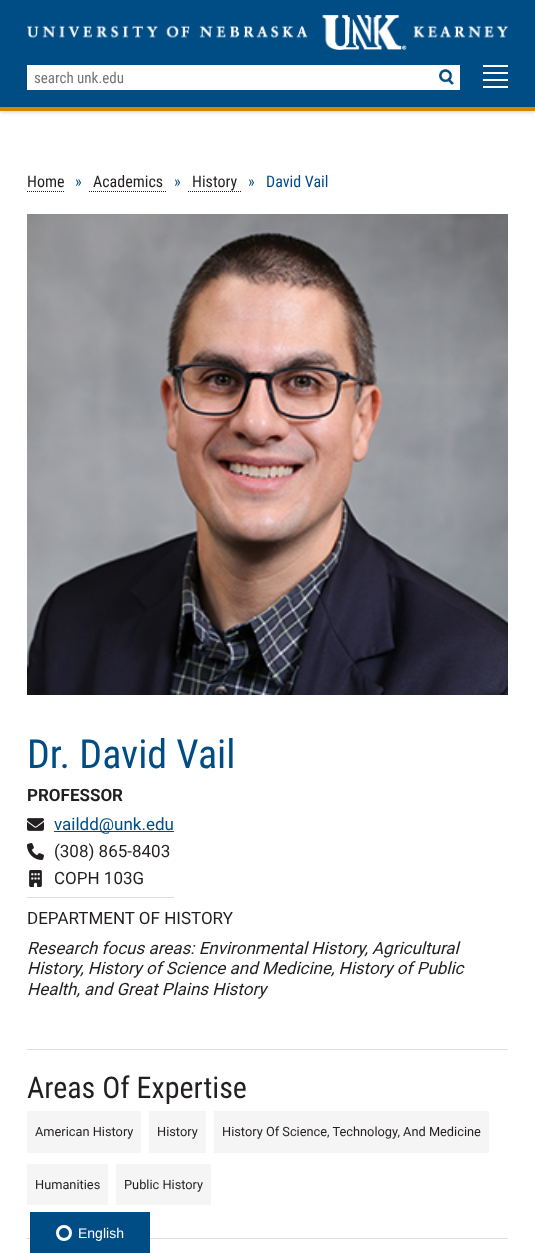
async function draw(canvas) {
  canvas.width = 535;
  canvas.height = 1253;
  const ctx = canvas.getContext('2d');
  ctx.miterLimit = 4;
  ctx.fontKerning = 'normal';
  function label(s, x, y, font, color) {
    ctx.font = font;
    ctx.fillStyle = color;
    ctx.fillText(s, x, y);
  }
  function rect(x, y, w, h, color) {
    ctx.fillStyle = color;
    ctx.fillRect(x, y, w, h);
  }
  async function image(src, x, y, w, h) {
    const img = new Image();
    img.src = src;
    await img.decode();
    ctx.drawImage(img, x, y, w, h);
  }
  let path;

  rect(0, 0, 535, 1253, '#fff');
  ctx.fillStyle = '#32323259';
  ctx.filter = 'blur(2.5px)';
  ctx.beginPath();
  ctx.rect(0, 0, 535, 111);
  ctx.fill();
  ctx.filter = 'none';
  rect(0, 0, 535, 107, '#004d86');
  rect(0, 107, 535, 4, '#ce8901');
  await image('assets/img1.png', 27, 15, 481, 35);
  rect(27, 65, 433, 25, '#fff');
  label('search unk.edu', 34, 83, '15px Roboto Condensed', '#757575');
  await image('assets/img2.png', 439, 69, 15, 16);
  rect(483, 65, 25, 2, '#fff');
  rect(483, 72, 25, 2, '#fff');
  rect(483, 79, 25, 2, '#fff');
  rect(483, 86, 25, 2, '#fff');
  label('Home', 27, 187, '16px Roboto Condensed', '#231f20');
  path = new Path2D('M27 191.5H64');
  ctx.strokeStyle = '#231f20';
  ctx.setLineDash([1, 1]);
  ctx.stroke(path);
  label('»', 75, 187, '16px Roboto Condensed', '#004d86');
  label('Academics', 93, 187, '16px Roboto Condensed', '#231f20');
  path = new Path2D('M89 191.5H167');
  ctx.stroke(path);
  label('»', 174, 187, '16px Roboto Condensed', '#004d86');
  label('History', 192, 187, '16px Roboto Condensed', '#231f20');
  path = new Path2D('M188 191.5H241');
  ctx.stroke(path);
  label('»', 248, 187, '16px Roboto Condensed', '#004d86');
  label('David Vail', 266, 187, '16px Roboto Condensed', '#004d86');
  await image('assets/img3.png', 27, 214, 481, 481);
  label('Dr. David Vail', 27, 768, '40px Roboto Condensed', '#004d86');
  label('PROFESSOR', 27, 801, 'bold 17px Roboto', '#231f20');
  rect(27, 897, 147, 1, '#ddd');
  await image('assets/img4.png', 27, 818, 17, 13);
  rect(54, 831, 120, 1, '#004d86');
  label('vaildd@unk.edu', 54, 830, '17px Roboto', '#004d86');
  await image('assets/img5.png', 27, 843, 17, 17);
  label('(308) 865-8403', 54, 857, '17px Roboto', '#231f20');
  await image('assets/img6.png', 29, 870, 13, 17);
  label('COPH 103G', 54, 884, '17px Roboto', '#231f20');
  label('DEPARTMENT OF HISTORY', 27, 924, '17px Roboto', '#231f20');
  label('Research focus areas: Environmental History, Agricultural', 27, 954, 'italic 17px Roboto', '#231f20');
  label('History, History of Science and Medicine, History of Public', 27, 974, 'italic 17px Roboto', '#231f20');
  label('Health, and Great Plains History', 27, 995, 'italic 17px Roboto', '#231f20');
  rect(27, 1049, 481, 1, '#ddd');
  label('Areas Of Expertise', 27, 1098, '30px Roboto Condensed', '#231f20');
  rect(27, 1111, 114, 42, '#f5f5f5');
  label('American History', 35, 1136, '12.8px Roboto', '#231f20');
  rect(149, 1111, 57, 42, '#f5f5f5');
  label('History', 157, 1136, '12.8px Roboto', '#231f20');
  rect(214, 1111, 275, 42, '#f5f5f5');
  label('History Of Science, Technology, And Medicine', 222, 1136, '12.8px Roboto', '#231f20');
  rect(27, 1164, 81, 41, '#f5f5f5');
  label('Humanities', 35, 1189, '12.8px Roboto', '#231f20');
  rect(116, 1164, 95, 41, '#f5f5f5');
  label('Public History', 124, 1189, '12.8px Roboto', '#231f20');
  rect(27, 1238, 481, 1, '#ddd');
  rect(30, 1212, 120, 41, '#004d86');
  ctx.beginPath();
  ctx.arc(64, 1233, 6.5, 0, 2 * Math.PI);
  ctx.strokeStyle = '#fff';
  ctx.lineWidth = 3;
  ctx.setLineDash([]);
  ctx.stroke();
  label('English', 78, 1238, '14px Liberation Sans', '#fff');
}

draw(document.querySelector('canvas'));
